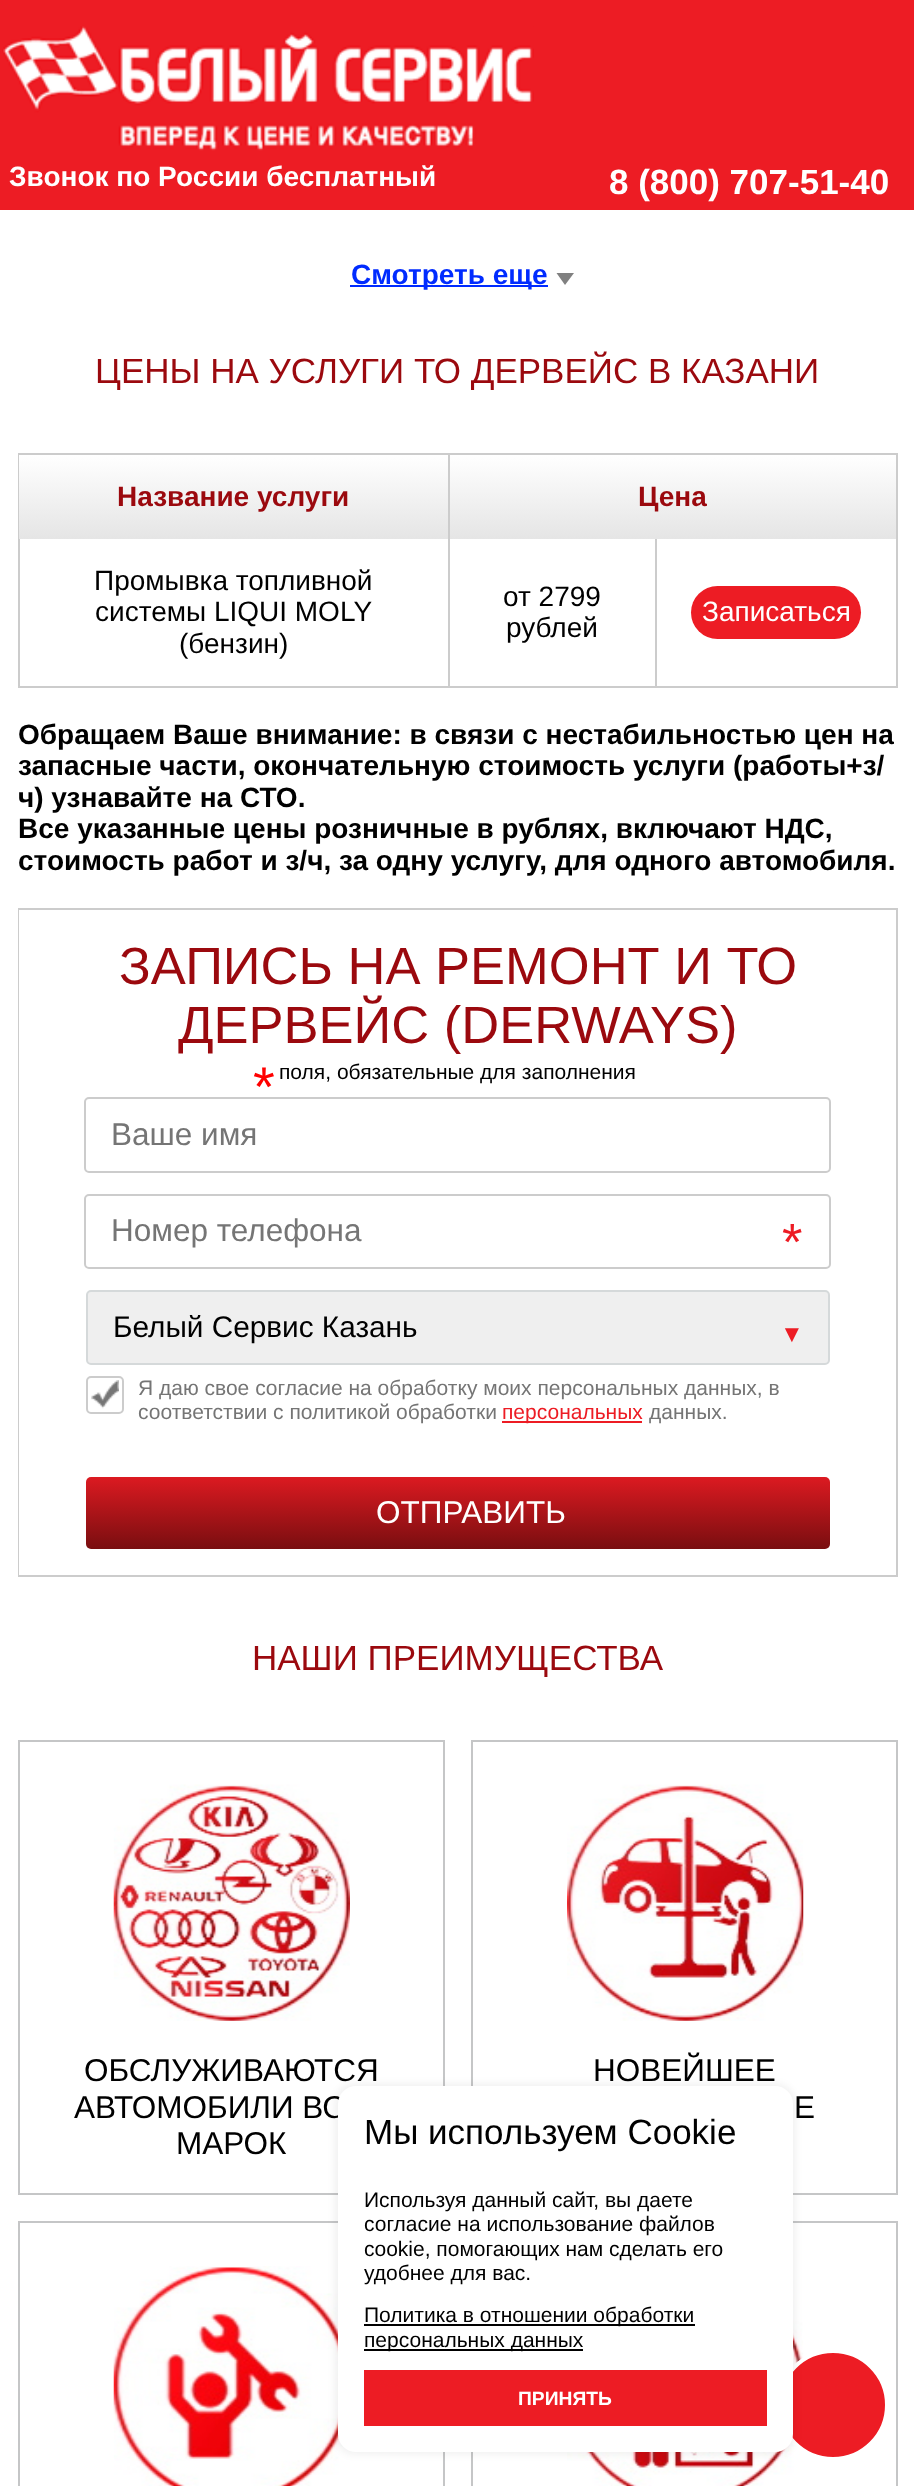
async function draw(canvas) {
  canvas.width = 914;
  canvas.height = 2486;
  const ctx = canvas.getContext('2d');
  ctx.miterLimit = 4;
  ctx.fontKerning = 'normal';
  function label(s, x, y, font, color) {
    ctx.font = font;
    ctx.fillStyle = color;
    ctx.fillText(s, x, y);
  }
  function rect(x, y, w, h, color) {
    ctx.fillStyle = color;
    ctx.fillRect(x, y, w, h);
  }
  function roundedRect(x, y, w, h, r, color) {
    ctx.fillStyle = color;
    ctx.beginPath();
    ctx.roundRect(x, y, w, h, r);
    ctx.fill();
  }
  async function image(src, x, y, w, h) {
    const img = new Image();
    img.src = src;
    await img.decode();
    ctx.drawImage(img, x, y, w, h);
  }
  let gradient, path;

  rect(0, 0, 914, 2486, '#fff');
  rect(0, 0, 914, 210, '#ed1c24');
  await image('assets/img1.png', 2, 26, 532, 125);
  label('Звонок по России бесплатный', 9, 186, 'bold 28px Liberation Sans', '#fff');
  label('8 (800) 707-51-40', 609, 194, 'bold 35px Liberation Sans', '#fff');
  rect(350, 285, 198, 2, '#002bff');
  label('Смотреть еще', 351, 284, 'bold 28px Liberation Sans', '#002bff');
  ctx.fillStyle = '#808080';
  path = new Path2D('M556.5 273H574L565 285Z');
  ctx.fill(path);
  label('ЦЕНЫ НА УСЛУГИ ТО ДЕРВЕЙС В КАЗАНИ', 95, 383, '35px Liberation Sans', '#9b090e');
  ctx.strokeStyle = '#ccc';
  ctx.lineWidth = 2;
  ctx.strokeRect(19, 454, 878, 233);
  gradient = ctx.createLinearGradient(458, 455, 458, 539);
  gradient.addColorStop(0, '#fff');
  gradient.addColorStop(1, '#e5e5e5');
  ctx.fillStyle = gradient;
  ctx.fillRect(19, 455, 877, 84);
  rect(448, 455, 2, 231, '#ccc');
  label('Название услуги', 117, 506, 'bold 28px Liberation Sans', '#9b090e');
  label('Цена', 638, 506, 'bold 28px Liberation Sans', '#9b090e');
  label('Промывка топливной', 94, 590, '28px Liberation Sans', '#000');
  label('системы LIQUI MOLY', 95, 621, '28px Liberation Sans', '#000');
  label('(бензин)', 179, 653, '28px Liberation Sans', '#000');
  rect(655, 539, 2, 147, '#ccc');
  label('от 2799', 503, 606, '28px Liberation Sans', '#000');
  label('рублей', 506, 637, '28px Liberation Sans', '#000');
  roundedRect(691, 586, 170, 53, 26.5, '#ed1c24');
  label('Записаться', 702, 621, '28px Liberation Sans', '#fff');
  label('Обращаем Ваше внимание: в связи с нестабильностью цен на', 18, 744, 'bold 28px Liberation Sans', '#000');
  label('запасные части, окончательную стоимость услуги (работы+з/', 18, 775, 'bold 28px Liberation Sans', '#000');
  label('ч) узнавайте на СТО.', 18, 807, 'bold 28px Liberation Sans', '#000');
  label('Все указанные цены розничные в рублях, включают НДС,', 18, 838, 'bold 28px Liberation Sans', '#000');
  label('стоимость работ и з/ч, за одну услугу, для одного автомобиля.', 18, 870, 'bold 28px Liberation Sans', '#000');
  ctx.strokeRect(19, 909, 878, 667);
  rect(19, 910, 1, 665, '#fff');
  label('ЗАПИСЬ НА РЕМОНТ И ТО', 119, 984, '52.5px Liberation Sans', '#9b090e');
  label('ДЕРВЕЙС (DERWAYS)', 178, 1043, '52.5px Liberation Sans', '#9b090e');
  label('*', 253, 1106, '56px Liberation Sans', '#f00');
  label('поля, обязательные для заполнения', 279, 1079, '21px Liberation Sans', '#000');
  ctx.beginPath();
  ctx.roundRect(85, 1098, 745, 74, 4);
  ctx.stroke();
  label('Ваше имя', 111, 1145, '31.5px Liberation Sans', '#757575');
  ctx.beginPath();
  ctx.roundRect(85, 1195, 745, 73, 4);
  ctx.stroke();
  label('Номер телефона', 111, 1241, '31.5px Liberation Sans', '#757575');
  label('*', 782, 1260, '52.5px Liberation Sans', '#ed1c24');
  ctx.fillStyle = '#efefef';
  ctx.beginPath();
  ctx.roundRect(87, 1291, 742, 73, 4);
  ctx.fill();
  ctx.strokeStyle = '#d5d9da';
  ctx.stroke();
  label('Белый Сервис Казань', 113, 1337, '29.75px Liberation Sans', '#000');
  label('▼', 780, 1342, '24px Liberation Sans', '#ed1c24');
  ctx.beginPath();
  ctx.roundRect(87, 1377, 36, 36, 4);
  ctx.strokeStyle = '#ccc';
  ctx.stroke();
  await image('assets/img2.png', 91, 1380, 28, 29);
  label('Я даю свое согласие на обработку моих персональных данных, в', 138, 1395, '21px Liberation Sans', '#757575');
  label('соответствии с политикой обработки', 138, 1419, '21px Liberation Sans', '#757575');
  rect(502, 1421, 140, 2, '#ed1c24');
  label('персональных', 502, 1419, '21px Liberation Sans', '#ed1c24');
  label('данных.', 649, 1419, '21px Liberation Sans', '#757575');
  gradient = ctx.createLinearGradient(458, 1477, 458, 1549);
  gradient.addColorStop(0, '#dc1a21');
  gradient.addColorStop(1, '#790e10');
  ctx.fillStyle = gradient;
  ctx.beginPath();
  ctx.roundRect(86, 1477, 744, 72, 5);
  ctx.fill();
  label('ОТПРАВИТЬ', 376, 1523, '31.5px Liberation Sans', '#fff');
  label('НАШИ ПРЕИМУЩЕСТВА', 252, 1670, '35px Liberation Sans', '#9b090e');
  ctx.strokeStyle = '#c5c6c7';
  ctx.strokeRect(19, 1741, 425, 453);
  await image('assets/img3.png', 113, 1784, 237, 237);
  label('ОБСЛУЖИВАЮТСЯ', 84, 2081, '31.5px Liberation Sans', '#000');
  label('АВТОМОБИЛИ ВС', 74, 2118, '31.5px Liberation Sans', '#000');
  label('МАРОК', 176, 2154, '31.5px Liberation Sans', '#000');
  ctx.strokeRect(472, 1741, 425, 453);
  await image('assets/img4.png', 567, 1784, 237, 237);
  label('НОВЕЙШЕЕ', 593, 2081, '31.5px Liberation Sans', '#000');
  label('Е', 794, 2118, '31.5px Liberation Sans', '#000');
  ctx.strokeRect(19, 2222, 425, 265);
  await image('assets/img5.png', 113, 2266, 237, 220);
  ctx.strokeRect(472, 2222, 425, 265);
  await image('assets/img6.png', 567, 2266, 237, 220);
  ctx.fillStyle = '#ed1c24';
  ctx.beginPath();
  ctx.arc(833, 2405, 54, 0, 2 * Math.PI);
  ctx.fill();
  ctx.strokeStyle = '#fff';
  ctx.lineWidth = 4;
  ctx.stroke();
  ctx.fillStyle = '#0000000d';
  ctx.filter = 'blur(3.5px)';
  ctx.beginPath();
  ctx.roundRect(334, 2083, 462, 372, 21);
  ctx.fill();
  ctx.filter = 'none';
  roundedRect(338, 2086, 455, 366, 18, '#fff');
  label('Мы используем Cookie', 364, 2144, '35px Liberation Sans', '#000');
  label('Используя данный сайт, вы даете', 364, 2207, '21px Liberation Sans', '#000');
  label('согласие на использование файлов', 364, 2231, '21px Liberation Sans', '#000');
  label('cookie, помогающих нам сделать его', 364, 2256, '21px Liberation Sans', '#000');
  label('удобнее для вас.', 364, 2280, '21px Liberation Sans', '#000');
  rect(364, 2324, 331, 2, '#000');
  label('Политика в отношении обработки', 364, 2322, '21px Liberation Sans', '#000');
  rect(364, 2349, 219, 2, '#000');
  label('персональных данных', 364, 2347, '21px Liberation Sans', '#000');
  rect(364, 2370, 403, 56, '#ed1c24');
  label('ПРИНЯТЬ', 518, 2405, 'bold 19.25px Liberation Sans', '#fff');
}

draw(document.querySelector('canvas'));
